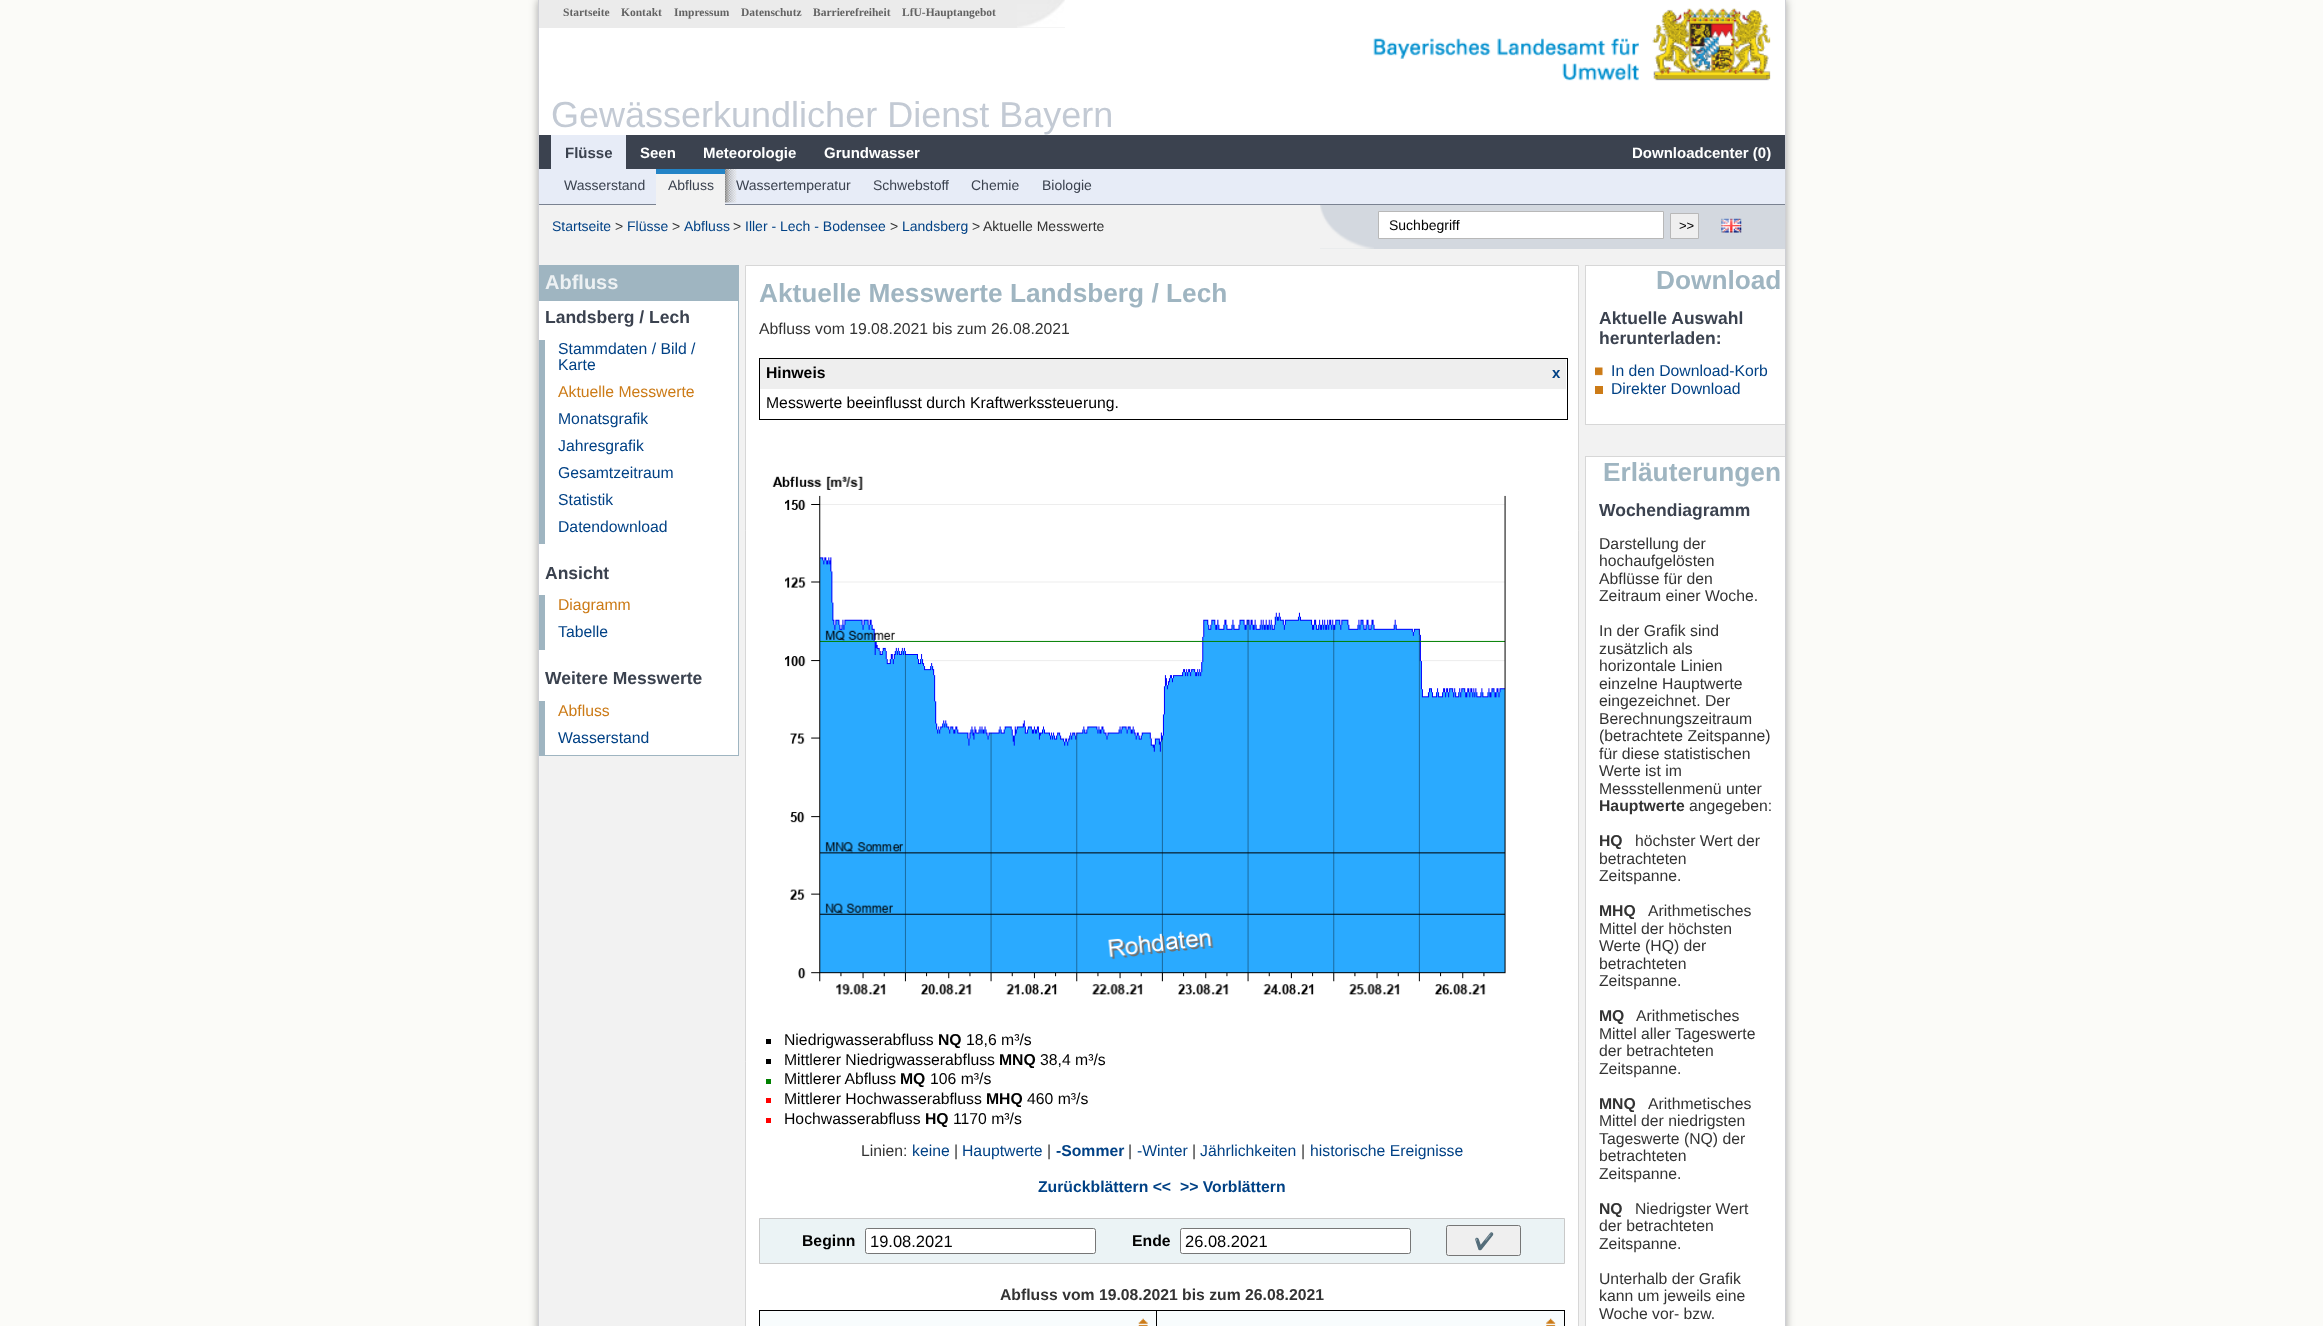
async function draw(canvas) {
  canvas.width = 2323;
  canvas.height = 1326;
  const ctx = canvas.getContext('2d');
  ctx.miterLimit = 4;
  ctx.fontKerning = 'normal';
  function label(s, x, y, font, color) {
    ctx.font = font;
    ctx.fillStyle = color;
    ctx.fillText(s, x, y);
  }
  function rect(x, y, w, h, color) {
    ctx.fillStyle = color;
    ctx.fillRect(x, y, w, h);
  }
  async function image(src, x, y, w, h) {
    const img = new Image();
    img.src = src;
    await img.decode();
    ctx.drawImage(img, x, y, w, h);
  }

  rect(0, 0, 2323, 1326, '#fbfbf8');
  ctx.fillStyle = '#00000059';
  ctx.filter = 'blur(4px)';
  ctx.beginPath();
  ctx.rect(538, 0, 1248, 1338);
  ctx.fill();
  ctx.filter = 'none';
  rect(539, 0, 1246, 135, '#fff');
  rect(1785, 0, 1, 1326, '#cecfd4');
  rect(538, 0, 1, 1326, '#cecfd4');
  rect(539, 0, 526, 28, '#ebebeb');
  await image('assets/img1.png', 1017, 0, 48, 28);
  label('Startseite', 563, 16, 'bold 11.5px Liberation Serif', '#636363');
  label('Kontakt', 621, 16, 'bold 11.5px Liberation Serif', '#636363');
  label('Impressum', 674, 16, 'bold 11.5px Liberation Serif', '#636363');
  label('Datenschutz', 741, 16, 'bold 11.5px Liberation Serif', '#636363');
  label('Barrierefreiheit', 813, 16, 'bold 11.5px Liberation Serif', '#636363');
  label('LfU-Hauptangebot', 902, 16, 'bold 11.5px Liberation Serif', '#636363');
  await image('assets/img2.png', 1373, 8, 398, 73);
  label('Gewässerkundlicher Dienst Bayern', 551, 127, '36px Liberation Sans', '#c3cad4');
  rect(539, 135, 1246, 34, '#3b424f');
  rect(551, 135, 75, 34, '#e7ecf7');
  label('Flüsse', 565, 158, 'bold 15px Liberation Sans', '#3b424f');
  label('Seen', 640, 158, 'bold 15px Liberation Sans', '#fff');
  label('Meteorologie', 703, 158, 'bold 15px Liberation Sans', '#fff');
  label('Grundwasser', 824, 158, 'bold 15px Liberation Sans', '#fff');
  label('Downloadcenter (0)', 1632, 158, 'bold 15px Liberation Sans', '#fff');
  rect(539, 169, 1246, 35, '#e7ecf7');
  rect(539, 204, 1246, 1, '#7a8291');
  label('Wasserstand', 564, 190, '14px Liberation Sans', '#3b424f');
  rect(656, 174, 69, 31, '#f2f2f2');
  rect(656, 169, 69, 5, '#2484c6');
  label('Abfluss', 668, 190, '14px Liberation Sans', '#3b424f');
  await image('assets/img3.png', 725, 169, 12, 34);
  label('Wassertemperatur', 736, 190, '14px Liberation Sans', '#3b424f');
  label('Schwebstoff', 873, 190, '14px Liberation Sans', '#3b424f');
  label('Chemie', 971, 190, '14px Liberation Sans', '#3b424f');
  label('Biologie', 1042, 190, '14px Liberation Sans', '#3b424f');
  rect(539, 205, 1246, 1121, '#f2f2f2');
  label('Startseite', 552, 231, '14px Liberation Sans', '#004185');
  label('>', 615, 231, '14px Liberation Sans', '#333');
  label('Flüsse', 627, 231, '14px Liberation Sans', '#004185');
  label('>', 672, 231, '14px Liberation Sans', '#333');
  label('Abfluss', 684, 231, '14px Liberation Sans', '#004185');
  label('>', 733, 231, '14px Liberation Sans', '#333');
  label('Iller - Lech - Bodensee', 745, 231, '14px Liberation Sans', '#004185');
  label('>', 890, 231, '14px Liberation Sans', '#333');
  label('Landsberg', 902, 231, '14px Liberation Sans', '#004185');
  label('>', 972, 231, '14px Liberation Sans', '#333');
  label('Aktuelle Messwerte', 983, 231, '14px Liberation Sans', '#333');
  rect(1320, 205, 465, 44, '#d3d8df');
  await image('assets/img4.png', 1320, 205, 54, 44);
  ctx.fillStyle = '#fff';
  ctx.beginPath();
  ctx.rect(1378.5, 211.5, 285, 27);
  ctx.fill();
  ctx.strokeStyle = '#b8b8b8';
  ctx.stroke();
  label('Suchbegriff', 1389, 230, '14px Liberation Sans', '#000');
  ctx.fillStyle = '#efefef';
  ctx.beginPath();
  ctx.rect(1670.5, 213.5, 28, 25);
  ctx.fill();
  ctx.stroke();
  label('>>', 1679, 230, '13px Liberation Sans', '#000');
  await image('assets/img5.png', 1721, 218, 21, 15);
  rect(539, 301, 199, 454, '#fff');
  rect(539, 265, 200, 1, '#9fb5c1');
  rect(738, 265, 1, 491, '#9fb5c1');
  rect(539, 755, 200, 1, '#9fb5c1');
  rect(539, 266, 199, 35, '#9fb5c1');
  label('Abfluss', 545, 289, 'bold 20px Liberation Sans', '#edf1f3');
  label('Landsberg / Lech', 545, 323, 'bold 17.5px Liberation Sans', '#3b424f');
  rect(539, 340, 6, 204, '#9fb5c1');
  label('Stammdaten / Bild /', 558, 354, '15.75px Liberation Sans', '#004185');
  label('Karte', 558, 370, '15.75px Liberation Sans', '#004185');
  label('Aktuelle Messwerte', 558, 397, '15.75px Liberation Sans', '#cc7b17');
  label('Monatsgrafik', 558, 424, '15.75px Liberation Sans', '#004185');
  label('Jahresgrafik', 558, 451, '15.75px Liberation Sans', '#004185');
  label('Gesamtzeitraum', 558, 478, '15.75px Liberation Sans', '#004185');
  label('Statistik', 558, 505, '15.75px Liberation Sans', '#004185');
  label('Datendownload', 558, 532, '15.75px Liberation Sans', '#004185');
  label('Ansicht', 545, 579, 'bold 17.5px Liberation Sans', '#3b424f');
  rect(539, 595, 6, 55, '#9fb5c1');
  label('Diagramm', 558, 610, '15.75px Liberation Sans', '#cc7b17');
  label('Tabelle', 558, 637, '15.75px Liberation Sans', '#004185');
  label('Weitere Messwerte', 545, 684, 'bold 17.5px Liberation Sans', '#3b424f');
  rect(539, 701, 6, 54, '#9fb5c1');
  label('Abfluss', 558, 716, '15.75px Liberation Sans', '#cc7b17');
  label('Wasserstand', 558, 743, '15.75px Liberation Sans', '#004185');
  ctx.fillStyle = '#fff';
  ctx.beginPath();
  ctx.rect(745.5, 265.5, 833, 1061);
  ctx.fill();
  ctx.strokeStyle = '#d7d7d7';
  ctx.stroke();
  label('Aktuelle Messwerte Landsberg / Lech', 759, 302, 'bold 26.25px Liberation Sans', '#9fb5c1');
  label('Abfluss vom 19.08.2021 bis zum 26.08.2021', 759, 334, '15.75px Liberation Sans', '#333');
  ctx.strokeStyle = '#000';
  ctx.strokeRect(759.5, 358.5, 808, 61);
  rect(760, 359, 806, 30, '#eee');
  label('Hinweis', 766, 378, 'bold 15.75px Liberation Sans', '#000');
  label('x', 1552, 378, 'bold 15px Liberation Sans', '#004185');
  label('Messwerte beeinflusst durch Kraftwerkssteuerung.', 766, 408, '15.75px Liberation Sans', '#000');
  await image('assets/img6.png', 772, 476, 734, 519);
  rect(766, 1039, 5, 5, '#000');
  label('Niedrigwasserabfluss', 784, 1045, '15.75px Liberation Sans', '#000');
  label('NQ', 938, 1045, 'bold 15.75px Liberation Sans', '#000');
  label('18,6 m³/s', 966, 1045, '15.75px Liberation Sans', '#000');
  rect(766, 1059, 5, 5, '#000');
  label('Mittlerer Niedrigwasserabfluss', 784, 1065, '15.75px Liberation Sans', '#000');
  label('MNQ', 999, 1065, 'bold 15.75px Liberation Sans', '#000');
  label('38,4 m³/s', 1040, 1065, '15.75px Liberation Sans', '#000');
  rect(766, 1079, 5, 5, '#008000');
  label('Mittlerer Abfluss', 784, 1084, '15.75px Liberation Sans', '#000');
  label('MQ', 900, 1084, 'bold 15.75px Liberation Sans', '#000');
  label('106 m³/s', 930, 1084, '15.75px Liberation Sans', '#000');
  rect(766, 1098, 5, 5, '#f00');
  label('Mittlerer Hochwasserabfluss', 784, 1104, '15.75px Liberation Sans', '#000');
  label('MHQ', 986, 1104, 'bold 15.75px Liberation Sans', '#000');
  label('460 m³/s', 1027, 1104, '15.75px Liberation Sans', '#000');
  rect(766, 1118, 5, 5, '#f00');
  label('Hochwasserabfluss', 784, 1124, '15.75px Liberation Sans', '#000');
  label('HQ', 925, 1124, 'bold 15.75px Liberation Sans', '#000');
  label('1170 m³/s', 953, 1124, '15.75px Liberation Sans', '#000');
  label('Linien:', 861, 1156, '15.75px Liberation Sans', '#333');
  label('keine', 912, 1156, '15.75px Liberation Sans', '#004185');
  label('|', 954, 1156, '15.75px Liberation Sans', '#333');
  label('Hauptwerte', 962, 1156, '15.75px Liberation Sans', '#004185');
  label('|', 1047, 1156, '15.75px Liberation Sans', '#333');
  label('-Sommer', 1056, 1156, 'bold 15.75px Liberation Sans', '#004185');
  label('|', 1128, 1156, '15.75px Liberation Sans', '#333');
  label('-Winter', 1137, 1156, '15.75px Liberation Sans', '#004185');
  label('|', 1192, 1156, '15.75px Liberation Sans', '#333');
  label('Jährlichkeiten', 1200, 1156, '15.75px Liberation Sans', '#004185');
  label('|', 1301, 1156, '15.75px Liberation Sans', '#333');
  label('historische Ereignisse', 1310, 1156, '15.75px Liberation Sans', '#004185');
  label('Zurückblättern <<', 1038, 1192, 'bold 15.75px Liberation Sans', '#004185');
  label('>> Vorblättern', 1180, 1192, 'bold 15.75px Liberation Sans', '#004185');
  ctx.fillStyle = '#ebf3f5';
  ctx.beginPath();
  ctx.rect(759.5, 1218.5, 805, 45);
  ctx.fill();
  ctx.strokeStyle = '#c9c9c9';
  ctx.stroke();
  label('Beginn', 802, 1246, 'bold 15.75px Liberation Sans', '#000');
  ctx.fillStyle = '#fff';
  ctx.beginPath();
  ctx.roundRect(865.5, 1228.5, 230, 25, 2);
  ctx.fill();
  ctx.strokeStyle = '#767676';
  ctx.stroke();
  label('19.08.2021', 870, 1247, '16.5px Liberation Sans', '#000');
  label('Ende', 1132, 1246, 'bold 15.75px Liberation Sans', '#000');
  ctx.fillStyle = '#fff';
  ctx.beginPath();
  ctx.roundRect(1180.5, 1228.5, 230, 25, 2);
  ctx.fill();
  ctx.stroke();
  label('26.08.2021', 1185, 1247, '16.5px Liberation Sans', '#000');
  ctx.fillStyle = '#efefef';
  ctx.beginPath();
  ctx.roundRect(1446.5, 1225.5, 74, 30, 2);
  ctx.fill();
  ctx.stroke();
  label('✔️', 1474, 1247, '16.5px Noto Color Emoji', '#000');
  label('Abfluss vom 19.08.2021 bis zum 26.08.2021', 1000, 1300, 'bold 15.75px Liberation Sans', '#333');
  await image('assets/img7.png', 760, 1311, 396, 15);
  rect(1156, 1310, 409, 1, '#000');
  rect(1156, 1310, 1, 16, '#000');
  rect(759, 1310, 399, 1, '#000');
  rect(759, 1310, 1, 16, '#000');
  await image('assets/img8.png', 1157, 1311, 407, 15);
  rect(1564, 1310, 1, 16, '#000');
  rect(1586, 266, 199, 158, '#fff');
  rect(1585, 265, 200, 1, '#d7d7d7');
  rect(1585, 424, 200, 1, '#d7d7d7');
  rect(1585, 265, 1, 160, '#d7d7d7');
  label('Download', 1656, 289, 'bold 26.25px Liberation Sans', '#9fb5c1');
  label('Aktuelle Auswahl', 1599, 324, 'bold 17.5px Liberation Sans', '#3b424f');
  label('herunterladen:', 1599, 344, 'bold 17.5px Liberation Sans', '#3b424f');
  await image('assets/img9.png', 1595, 367, 8, 9);
  label('In den Download-Korb', 1611, 376, '15.75px Liberation Sans', '#004185');
  rect(1595, 386, 8, 8, '#cc7b17');
  label('Direkter Download', 1611, 394, '15.75px Liberation Sans', '#004185');
  rect(1586, 457, 199, 869, '#fff');
  rect(1585, 456, 200, 1, '#d7d7d7');
  rect(1585, 456, 1, 870, '#d7d7d7');
  label('Erläuterungen', 1603, 481, 'bold 26.25px Liberation Sans', '#9fb5c1');
  label('Wochendiagramm', 1599, 516, 'bold 17.5px Liberation Sans', '#3b424f');
  label('Darstellung der', 1599, 549, '15.75px Liberation Sans', '#333');
  label('hochaufgelösten', 1599, 566, '15.75px Liberation Sans', '#333');
  label('Abflüsse für den', 1599, 584, '15.75px Liberation Sans', '#333');
  label('Zeitraum einer Woche.', 1599, 601, '15.75px Liberation Sans', '#333');
  label('In der Grafik sind', 1599, 636, '15.75px Liberation Sans', '#333');
  label('zusätzlich als', 1599, 654, '15.75px Liberation Sans', '#333');
  label('horizontale Linien', 1599, 671, '15.75px Liberation Sans', '#333');
  label('einzelne Hauptwerte', 1599, 689, '15.75px Liberation Sans', '#333');
  label('eingezeichnet. Der', 1599, 706, '15.75px Liberation Sans', '#333');
  label('Berechnungszeitraum', 1599, 724, '15.75px Liberation Sans', '#333');
  label('(betrachtete Zeitspanne)', 1599, 741, '15.75px Liberation Sans', '#333');
  label('für diese statistischen', 1599, 759, '15.75px Liberation Sans', '#333');
  label('Werte ist im', 1599, 776, '15.75px Liberation Sans', '#333');
  label('Messstellenmenü unter', 1599, 794, '15.75px Liberation Sans', '#333');
  label('Hauptwerte', 1599, 811, 'bold 15.75px Liberation Sans', '#333');
  label('angegeben:', 1689, 811, '15.75px Liberation Sans', '#333');
  label('HQ', 1599, 846, 'bold 15.75px Liberation Sans', '#333');
  label('höchster Wert der', 1635, 846, '15.75px Liberation Sans', '#333');
  label('betrachteten', 1599, 864, '15.75px Liberation Sans', '#333');
  label('Zeitspanne.', 1599, 881, '15.75px Liberation Sans', '#333');
  label('MHQ', 1599, 916, 'bold 15.75px Liberation Sans', '#333');
  label('Arithmetisches', 1648, 916, '15.75px Liberation Sans', '#333');
  label('Mittel der höchsten', 1599, 934, '15.75px Liberation Sans', '#333');
  label('Werte (HQ) der', 1599, 951, '15.75px Liberation Sans', '#333');
  label('betrachteten', 1599, 969, '15.75px Liberation Sans', '#333');
  label('Zeitspanne.', 1599, 986, '15.75px Liberation Sans', '#333');
  label('MQ', 1599, 1021, 'bold 15.75px Liberation Sans', '#333');
  label('Arithmetisches', 1636, 1021, '15.75px Liberation Sans', '#333');
  label('Mittel aller Tageswerte', 1599, 1039, '15.75px Liberation Sans', '#333');
  label('der betrachteten', 1599, 1056, '15.75px Liberation Sans', '#333');
  label('Zeitspanne.', 1599, 1074, '15.75px Liberation Sans', '#333');
  label('MNQ', 1599, 1109, 'bold 15.75px Liberation Sans', '#333');
  label('Arithmetisches', 1648, 1109, '15.75px Liberation Sans', '#333');
  label('Mittel der niedrigsten', 1599, 1126, '15.75px Liberation Sans', '#333');
  label('Tageswerte (NQ) der', 1599, 1144, '15.75px Liberation Sans', '#333');
  label('betrachteten', 1599, 1161, '15.75px Liberation Sans', '#333');
  label('Zeitspanne.', 1599, 1179, '15.75px Liberation Sans', '#333');
  label('NQ', 1599, 1214, 'bold 15.75px Liberation Sans', '#333');
  label('Niedrigster Wert', 1635, 1214, '15.75px Liberation Sans', '#333');
  label('der betrachteten', 1599, 1231, '15.75px Liberation Sans', '#333');
  label('Zeitspanne.', 1599, 1249, '15.75px Liberation Sans', '#333');
  label('Unterhalb der Grafik', 1599, 1284, '15.75px Liberation Sans', '#333');
  label('kann um jeweils eine', 1599, 1301, '15.75px Liberation Sans', '#333');
  label('Woche vor- bzw.', 1599, 1319, '15.75px Liberation Sans', '#333');
}

draw(document.querySelector('canvas'));
